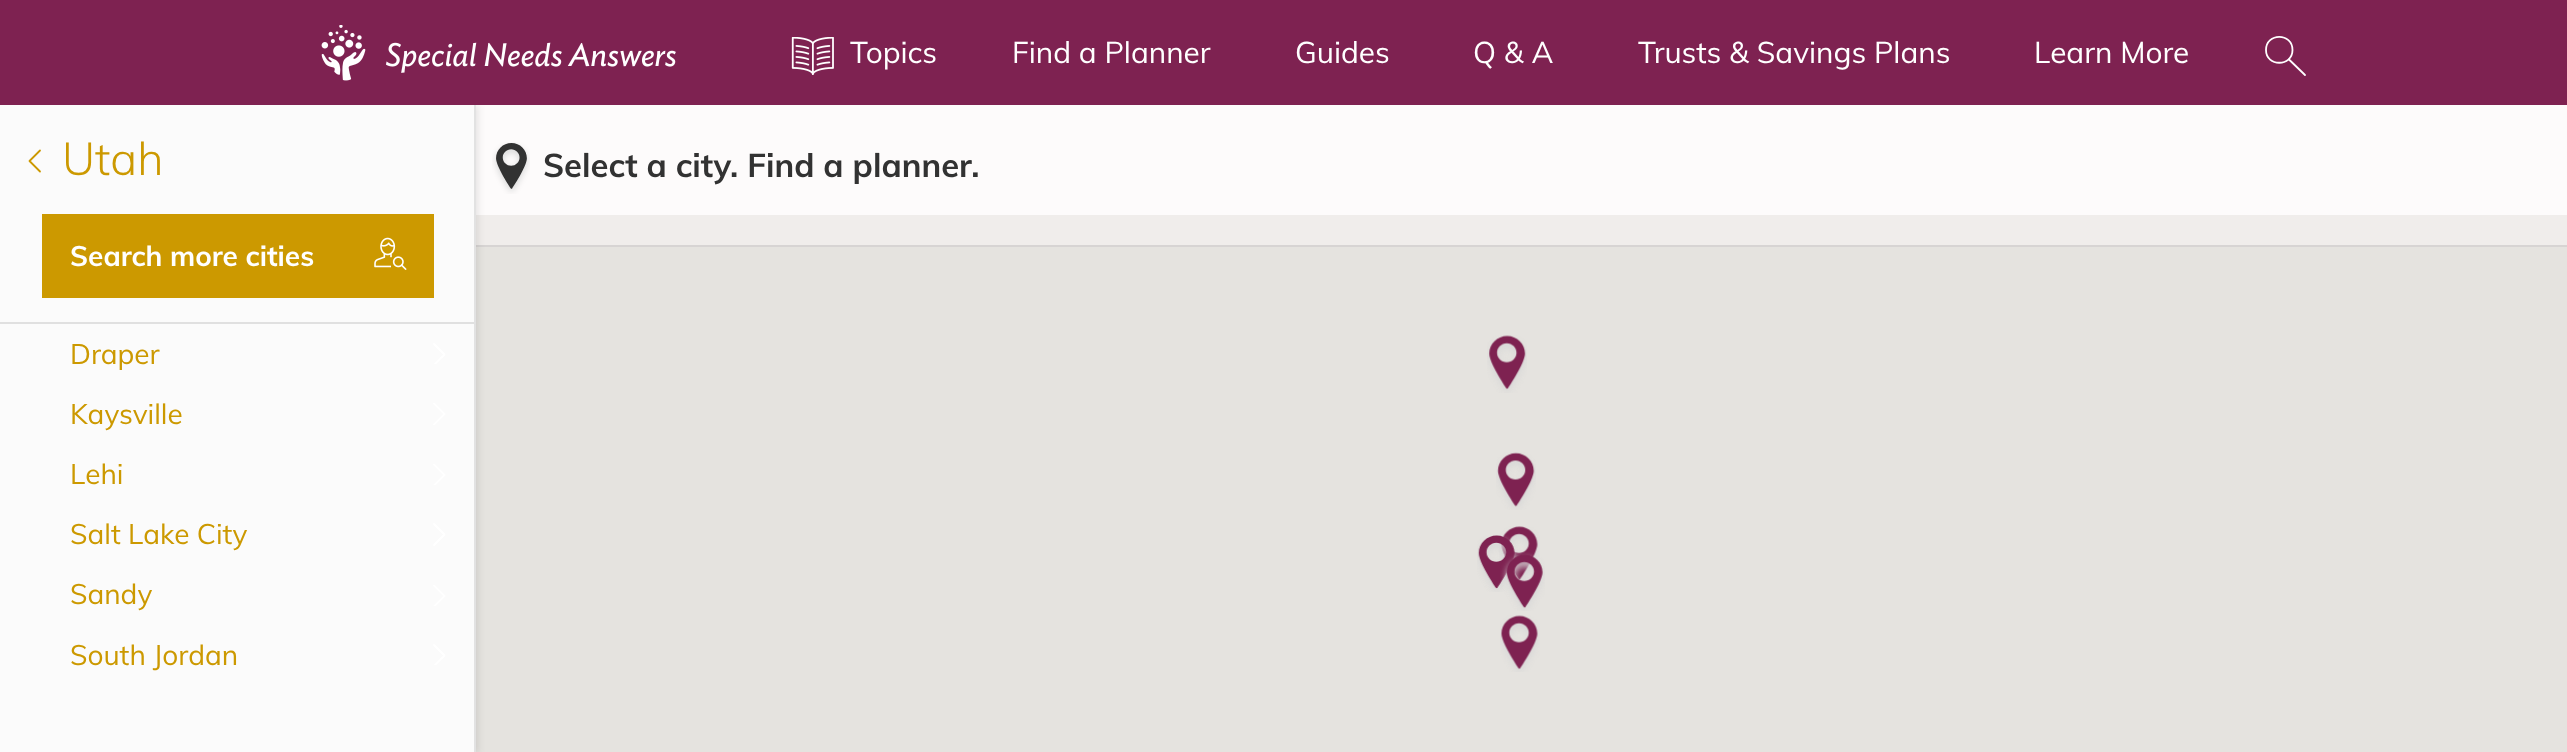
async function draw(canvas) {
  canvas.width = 2567;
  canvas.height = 752;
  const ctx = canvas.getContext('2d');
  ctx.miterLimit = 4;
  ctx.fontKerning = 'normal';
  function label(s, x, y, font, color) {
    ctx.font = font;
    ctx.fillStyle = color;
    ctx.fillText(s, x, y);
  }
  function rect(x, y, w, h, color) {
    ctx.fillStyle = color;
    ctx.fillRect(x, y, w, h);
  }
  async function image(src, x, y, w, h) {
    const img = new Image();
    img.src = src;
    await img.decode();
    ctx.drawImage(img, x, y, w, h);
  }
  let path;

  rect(0, 0, 2567, 752, '#fff');
  rect(476, 215, 2091, 537, '#e5e3df');
  rect(476, 105, 2091, 142, '#fbf8f880');
  rect(476, 245, 2091, 2, '#0000001a');
  ctx.filter = 'blur(3.5px)';
  ctx.beginPath();
  ctx.rect(2, 105, 476, 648);
  ctx.fill();
  ctx.filter = 'none';
  rect(0, 0, 2567, 105, '#7e2251');
  await image('assets/img1.png', 321, 25, 355, 56);
  await image('assets/img2.png', 791, 37, 43, 38);
  label('Topics', 850, 63, '29.75px Muli', '#fff');
  label('Find a Planner', 1012, 63, '29.75px Muli', '#fff');
  label('Guides', 1295, 63, '29.75px Muli', '#fff');
  label('Q & A', 1473, 63, '29.75px Muli', '#fff');
  label('Trusts & Savings Plans', 1638, 63, '29.75px Muli', '#fff');
  label('Learn More', 2034, 63, '29.75px Muli', '#fff');
  path = new Path2D('M2292.5 50C2292.5 67 2266 67 2266 50C2266 32.5 2292.5 32.5 2292.5 50Z');
  ctx.strokeStyle = '#fff';
  ctx.lineWidth = 1.8;
  ctx.lineJoin = 'round';
  ctx.stroke(path);
  path = new Path2D('M2289 59.5L2305 75');
  ctx.lineCap = 'round';
  ctx.stroke(path);
  rect(0, 105, 474, 647, '#fbfbfb');
  rect(474, 105, 2, 647, '#e2e2e2');
  path = new Path2D('M40 150.5L29.5 161L40 171.5');
  ctx.strokeStyle = '#c90';
  ctx.stroke(path);
  label('Utah', 62, 175, '300 45.5px Muli', '#c90');
  rect(42, 214, 392, 84, '#c90');
  label('Search more cities', 70, 266, 'bold 28px Muli', '#fff');
  await image('assets/img3.png', 374, 237, 33, 33);
  rect(0, 322, 474, 2, '#e0e0e0');
  label('Draper', 70, 364, '28px Muli', '#c90');
  ctx.save();
  ctx.beginPath();
  ctx.rect(432, 343, 14, 21);
  ctx.clip();
  path = new Path2D('M434 344L444.5 354.5L434 365');
  ctx.strokeStyle = '#fff';
  ctx.stroke(path);
  ctx.restore();
  label('Kaysville', 70, 424, '28px Muli', '#c90');
  ctx.save();
  ctx.beginPath();
  ctx.rect(432, 403, 14, 22);
  ctx.clip();
  path = new Path2D('M434 403.5L444.5 414L434 424.5');
  ctx.strokeStyle = '#fff';
  ctx.stroke(path);
  ctx.restore();
  label('Lehi', 70, 484, '28px Muli', '#c90');
  ctx.save();
  ctx.beginPath();
  ctx.rect(432, 464, 14, 21);
  ctx.clip();
  path = new Path2D('M434 464.5L444.5 475L434 485.5');
  ctx.strokeStyle = '#fff';
  ctx.stroke(path);
  ctx.restore();
  label('Salt Lake City', 70, 544, '28px Muli', '#c90');
  path = new Path2D('M434 524L444.5 534.5L434 545');
  ctx.strokeStyle = '#fff';
  ctx.stroke(path);
  label('Sandy', 70, 604, '28px Muli', '#c90');
  ctx.save();
  ctx.beginPath();
  ctx.rect(432, 585, 14, 21);
  ctx.clip();
  path = new Path2D('M434 585.5L444.5 596L434 606.5');
  ctx.stroke(path);
  ctx.restore();
  label('South Jordan', 70, 665, '28px Muli', '#c90');
  ctx.save();
  ctx.beginPath();
  ctx.rect(432, 644, 14, 21);
  ctx.clip();
  path = new Path2D('M434 645L444.5 655.5L434 666');
  ctx.stroke(path);
  ctx.restore();
  await image('assets/img4.png', 492, 142, 38, 52);
  label('Select a city. Find a planner.', 543, 177, 'bold 32.75px Muli', '#323232');
  await image('assets/img5.png', 1487, 335, 40, 58);
  await image('assets/img6.png', 1496, 452, 40, 58);
  await image('assets/img7.png', 1499, 526, 41, 57);
  await image('assets/img8.png', 1477, 535, 44, 57);
  await image('assets/img9.png', 1500, 552, 45, 59);
  await image('assets/img10.png', 1500, 615, 40, 57);
}

draw(document.querySelector('canvas'));
